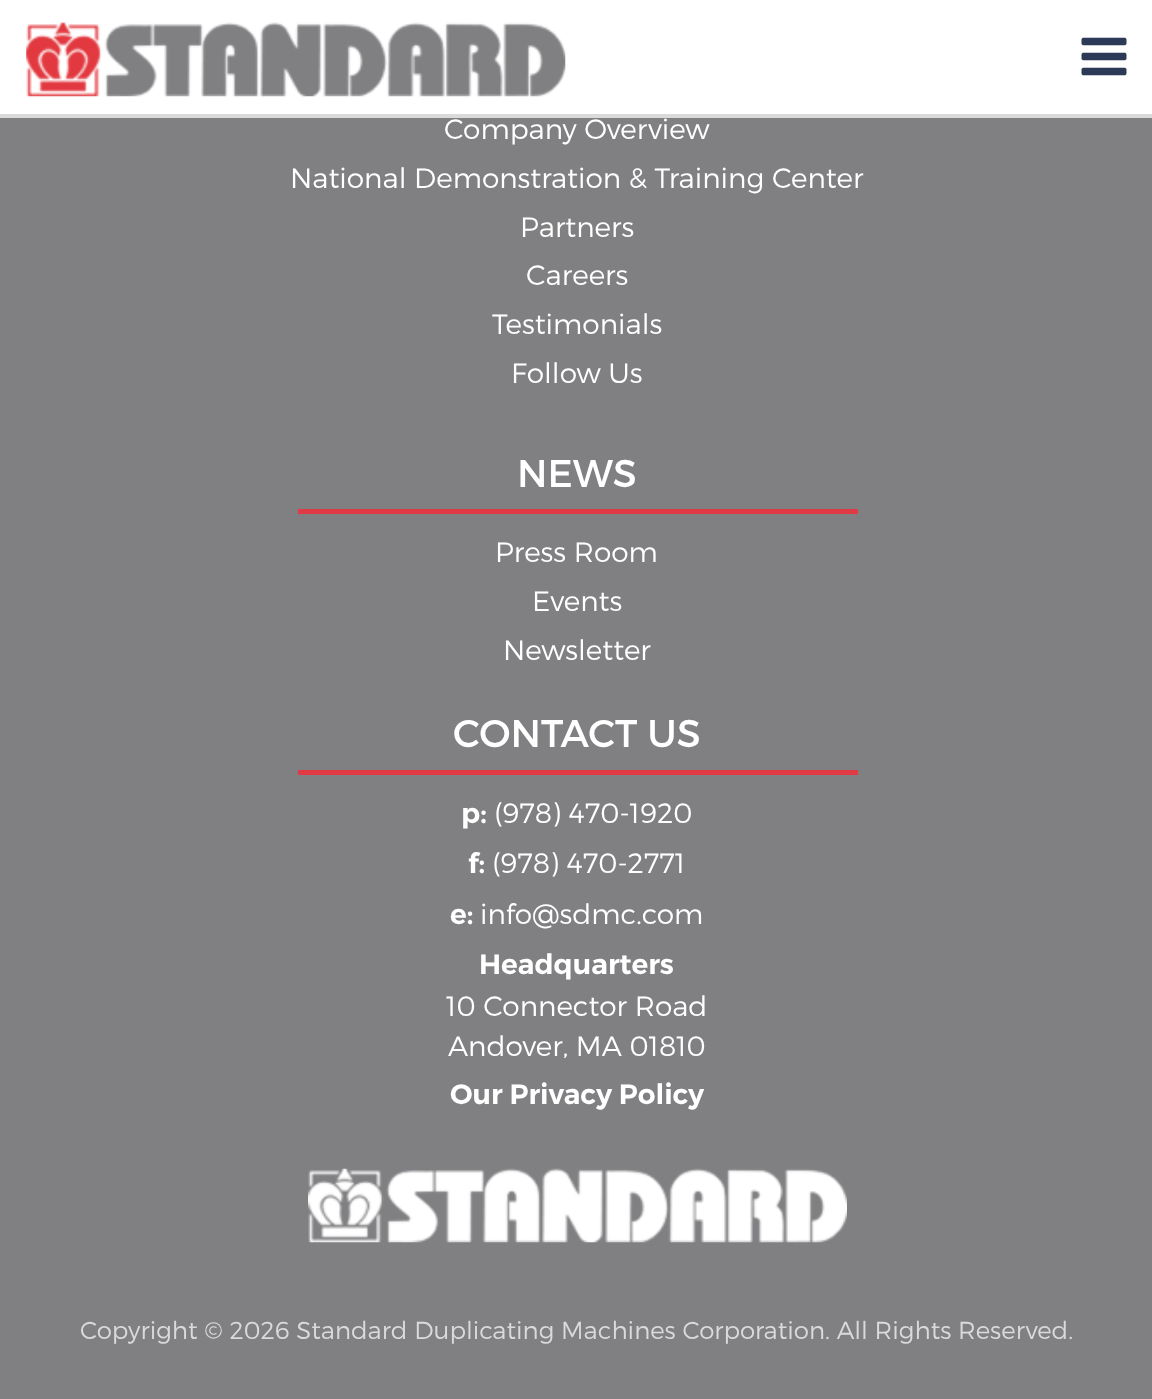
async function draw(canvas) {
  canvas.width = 1152;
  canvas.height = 1399;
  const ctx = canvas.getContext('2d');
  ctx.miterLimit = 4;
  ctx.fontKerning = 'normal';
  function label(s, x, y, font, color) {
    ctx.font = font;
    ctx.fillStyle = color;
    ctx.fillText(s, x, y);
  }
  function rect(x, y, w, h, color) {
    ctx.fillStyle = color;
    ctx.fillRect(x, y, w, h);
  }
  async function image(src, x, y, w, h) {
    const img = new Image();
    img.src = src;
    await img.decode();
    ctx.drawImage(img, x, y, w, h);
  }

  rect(0, 0, 1152, 1399, '#808083');
  rect(0, 114, 1152, 4, '#dadada');
  rect(0, 0, 1152, 114, '#fff');
  await image('assets/img1.png', 26, 22, 540, 75);
  await image('assets/img2.png', 1081, 37, 46, 39);
  label('Company Overview', 444, 139, '300 28px Montserrat', '#fff');
  label('National Demonstration & Training Center', 290, 188, '300 28px Montserrat', '#fff');
  label('Partners', 520, 237, '300 28px Montserrat', '#fff');
  label('Careers', 526, 285, '300 28px Montserrat', '#fff');
  label('Testimonials', 492, 334, '300 28px Montserrat', '#fff');
  label('Follow Us', 511, 383, '300 28px Montserrat', '#fff');
  label('NEWS', 517, 487, '38.5px Montserrat', '#fff');
  rect(298, 509, 560, 5, '#e03a44');
  label('Press Room', 495, 562, '300 28px Montserrat', '#fff');
  label('Events', 532, 611, '300 28px Montserrat', '#fff');
  label('Newsletter', 503, 660, '300 28px Montserrat', '#fff');
  label('CONTACT US', 453, 747, '38.5px Montserrat', '#fff');
  rect(298, 770, 560, 5, '#e03a44');
  label('p:', 461, 823, '600 28px Montserrat', '#fff');
  label('(978) 470-1920', 494, 823, '300 28px Montserrat', '#fff');
  label('f:', 468, 873, '600 28px Montserrat', '#fff');
  label('(978) 470-2771', 492, 873, '300 28px Montserrat', '#fff');
  label('e:', 450, 924, '600 28px Montserrat', '#fff');
  label('info@sdmc.com', 480, 924, '300 28px Montserrat', '#fff');
  label('Headquarters', 479, 974, '600 28px Montserrat', '#fff');
  label('10 Connector Road', 446, 1016, '300 28px Montserrat', '#fff');
  label('Andover, MA 01810', 448, 1056, '300 28px Montserrat', '#fff');
  label('Our Privacy Policy', 450, 1104, '600 28px Montserrat', '#fff');
  await image('assets/img3.png', 308, 1168, 539, 75);
  label('Copyright © 2026 Standard Duplicating Machines Corporation. All Rights Reserved.', 80, 1339, '300 24.5px Montserrat', '#dadada');
}

draw(document.querySelector('canvas'));
